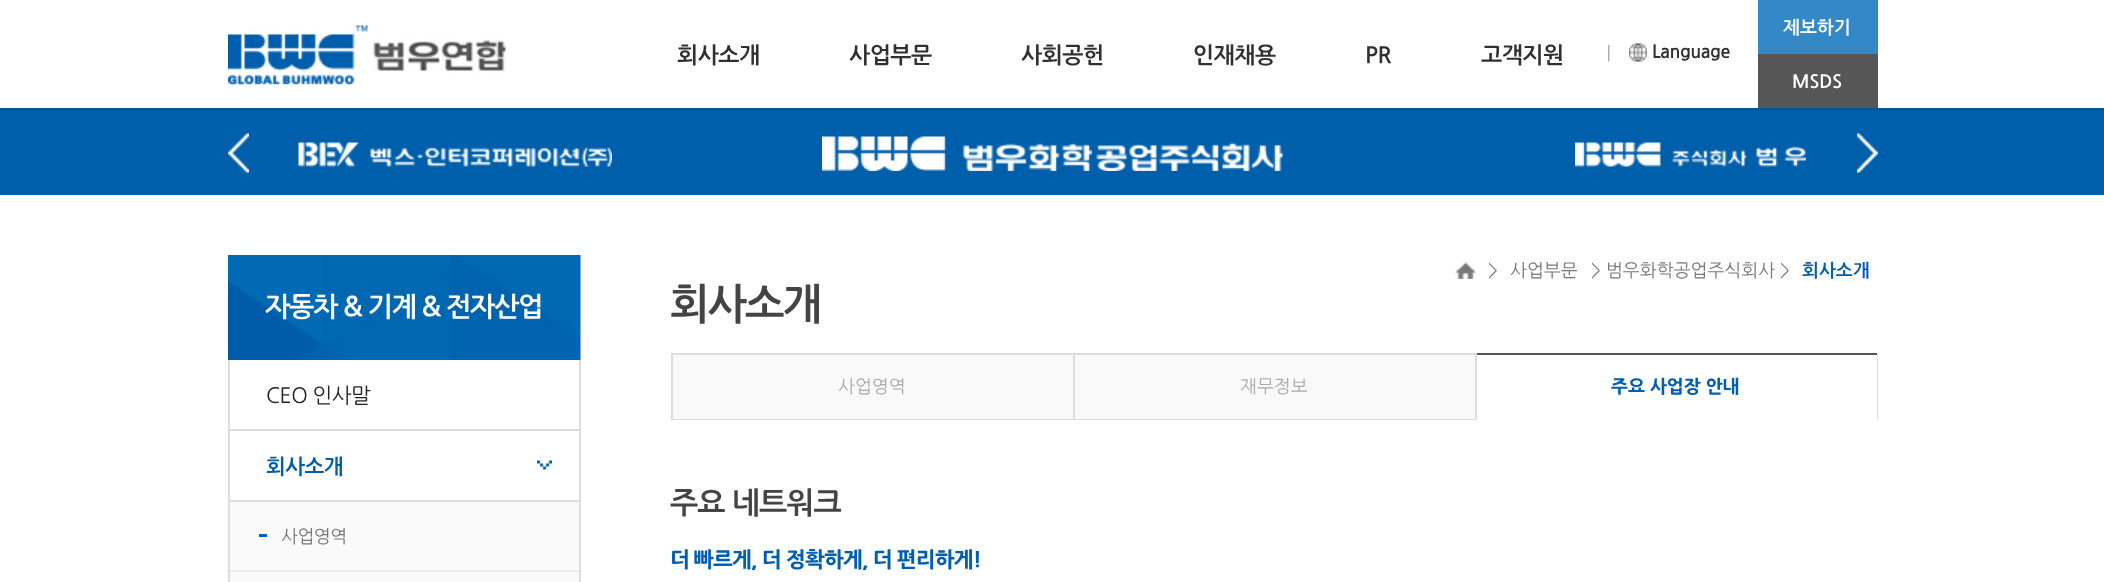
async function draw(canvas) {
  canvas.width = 2104;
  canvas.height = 582;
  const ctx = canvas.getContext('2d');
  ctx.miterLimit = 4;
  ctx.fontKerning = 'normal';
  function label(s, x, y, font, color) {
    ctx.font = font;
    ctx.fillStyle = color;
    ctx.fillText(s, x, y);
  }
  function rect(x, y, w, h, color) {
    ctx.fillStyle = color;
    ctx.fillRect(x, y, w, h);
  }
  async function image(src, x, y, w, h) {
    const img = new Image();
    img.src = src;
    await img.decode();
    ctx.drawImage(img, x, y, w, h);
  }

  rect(0, 0, 2104, 582, '#fff');
  rect(0, 108, 2104, 3, '#00569c');
  await image('assets/img1.png', 228, 25, 278, 60);
  ctx.letterSpacing = '-0.5px';
  label('회사소개', 677, 62, 'bold 22.5px NanumGothic', '#303030');
  label('사업부문', 849, 62, 'bold 22.5px NanumGothic', '#303030');
  label('사회공헌', 1021, 62, 'bold 22.5px NanumGothic', '#303030');
  label('인재채용', 1193, 62, 'bold 22.5px NanumGothic', '#303030');
  label('PR', 1365, 62, 'bold 22.5px NanumGothic', '#303030');
  label('고객지원', 1481, 62, 'bold 22.5px NanumGothic', '#303030');
  await image('assets/img2.png', 1608, 45, 2, 17);
  await image('assets/img3.png', 1629, 43, 18, 19);
  label('Language', 1652, 57, 'bold 18px NanumGothic', '#303030');
  rect(1758, 0, 120, 54, '#3488c6');
  ctx.letterSpacing = '0px';
  label('제보하기', 1783, 33, 'bold 18px NanumGothic', '#fff');
  rect(1758, 54, 120, 54, '#565656');
  label('MSDS', 1792, 87, 'bold 18px NanumGothic', '#fff');
  rect(0, 111, 2104, 84, '#005fab');
  await image('assets/img4.png', 228, 133, 21, 40);
  await image('assets/img5.png', 298, 142, 314, 25);
  await image('assets/img6.png', 1575, 142, 231, 25);
  await image('assets/img7.png', 1857, 133, 21, 40);
  await image('assets/img8.png', 822, 136, 461, 35);
  await image('assets/img9.png', 228, 255, 353, 105);
  ctx.letterSpacing = '-1.4px';
  label('자동차 & 기계 & 전자산업', 265, 315, 'bold 27px NanumGothic', '#fff');
  rect(579, 360, 2, 222, '#ddd');
  rect(228, 360, 2, 222, '#ddd');
  rect(230, 429, 349, 2, '#ddd');
  ctx.letterSpacing = '-0.5px';
  label('CEO 인사말', 266, 402, '21px NanumGothic', '#222');
  await image('assets/img10.png', 537, 460, 15, 10);
  label('회사소개', 266, 473, 'bold 21px NanumGothic', '#005fac');
  rect(230, 502, 349, 80, '#fafafa');
  rect(230, 500, 349, 2, '#ddd');
  rect(259, 534, 8, 3, '#005fad');
  label('사업영역', 281, 542, '18px NanumGothic', '#777');
  rect(230, 570, 349, 2, '#ededed');
  await image('assets/img11.png', 1455, 262, 21, 17);
  ctx.letterSpacing = '0px';
  label('>', 1488, 276, '18px NanumGothic', '#777');
  label('사업부문', 1510, 276, '18px NanumGothic', '#777');
  label('> 범우화학공업주식회사 >', 1591, 276, '18px NanumGothic', '#777');
  label('회사소개', 1802, 276, 'bold 18px NanumGothic', '#005fac');
  ctx.letterSpacing = '-2px';
  label('회사소개', 670, 317, 'bold 42px NanumGothic', '#444');
  rect(1877, 353, 1, 67, '#ddd');
  rect(673, 355, 400, 64, '#f9f9f9');
  rect(671, 353, 804, 2, '#ddd');
  rect(671, 419, 804, 1, '#ddd');
  rect(671, 353, 2, 67, '#ddd');
  ctx.letterSpacing = '0px';
  label('사업영역', 838, 392, '18px NanumGothic', '#aaa');
  rect(1075, 355, 400, 64, '#f9f9f9');
  rect(1073, 353, 2, 67, '#ddd');
  label('재무정보', 1240, 392, '18px NanumGothic', '#aaa');
  rect(1475, 353, 402, 2, '#555');
  rect(1475, 353, 2, 67, '#ddd');
  label('주요 사업장 안내', 1611, 392, '800 18px NanumGothic', '#005fac');
  ctx.letterSpacing = '-1px';
  label('주요 네트워크', 670, 512, 'bold 30px NanumGothic', '#444');
  ctx.letterSpacing = '-0.75px';
  label('더 빠르게, 더 정확하게, 더 편리하게!', 670, 566, '800 21px NanumGothic', '#005fac');
}

draw(document.querySelector('canvas'));
